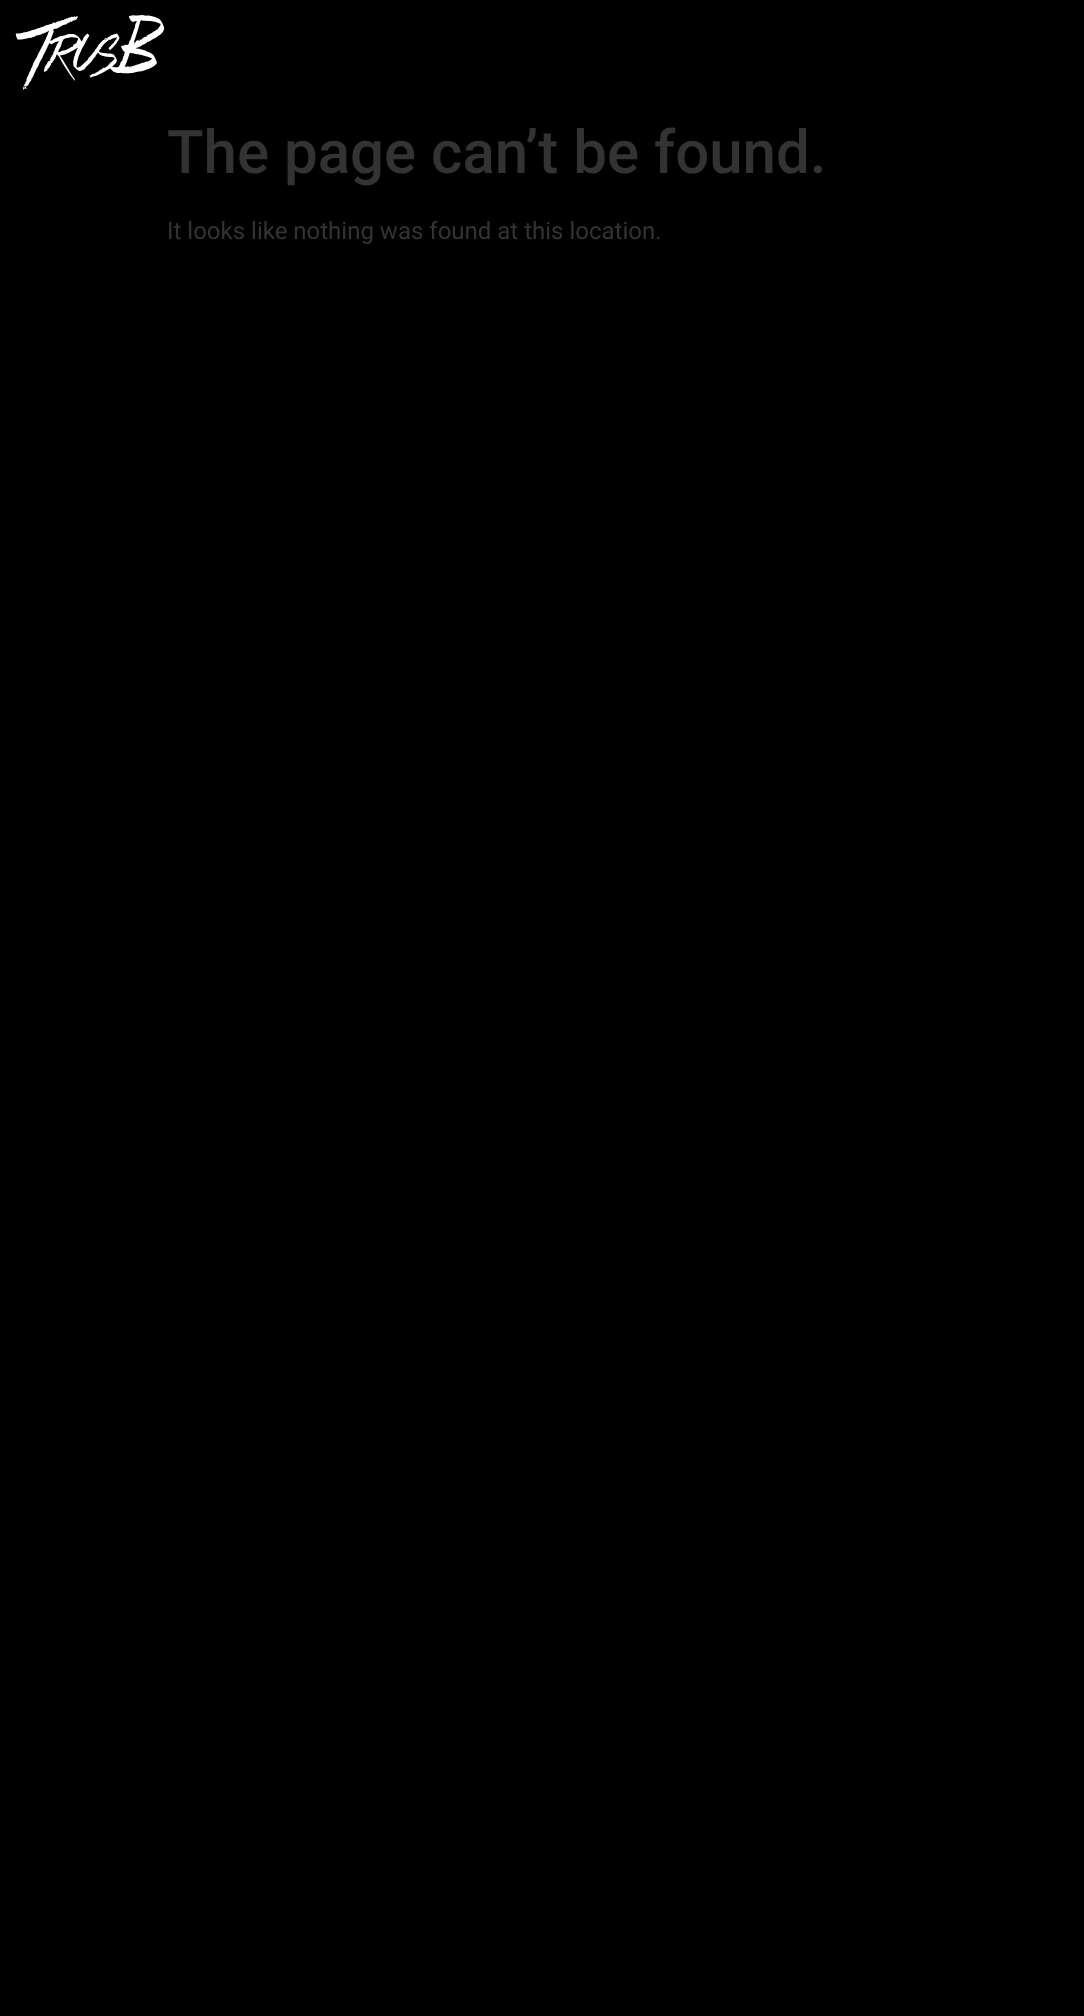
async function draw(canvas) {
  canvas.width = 1084;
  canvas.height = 2016;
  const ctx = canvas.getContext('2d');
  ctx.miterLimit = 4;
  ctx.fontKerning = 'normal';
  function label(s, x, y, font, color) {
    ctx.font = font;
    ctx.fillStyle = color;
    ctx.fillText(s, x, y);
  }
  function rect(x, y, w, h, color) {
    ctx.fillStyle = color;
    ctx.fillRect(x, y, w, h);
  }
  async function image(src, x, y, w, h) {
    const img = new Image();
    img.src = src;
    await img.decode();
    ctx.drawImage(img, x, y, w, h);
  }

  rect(0, 0, 1084, 2016, '#000');
  await image('assets/img1.png', 15, 15, 150, 75);
  label('The page can’t be found.', 167, 173, '500 60px Roboto', '#333');
  label('It looks like nothing was found at this location.', 167, 239, '24px Roboto', '#333');
}

draw(document.querySelector('canvas'));
